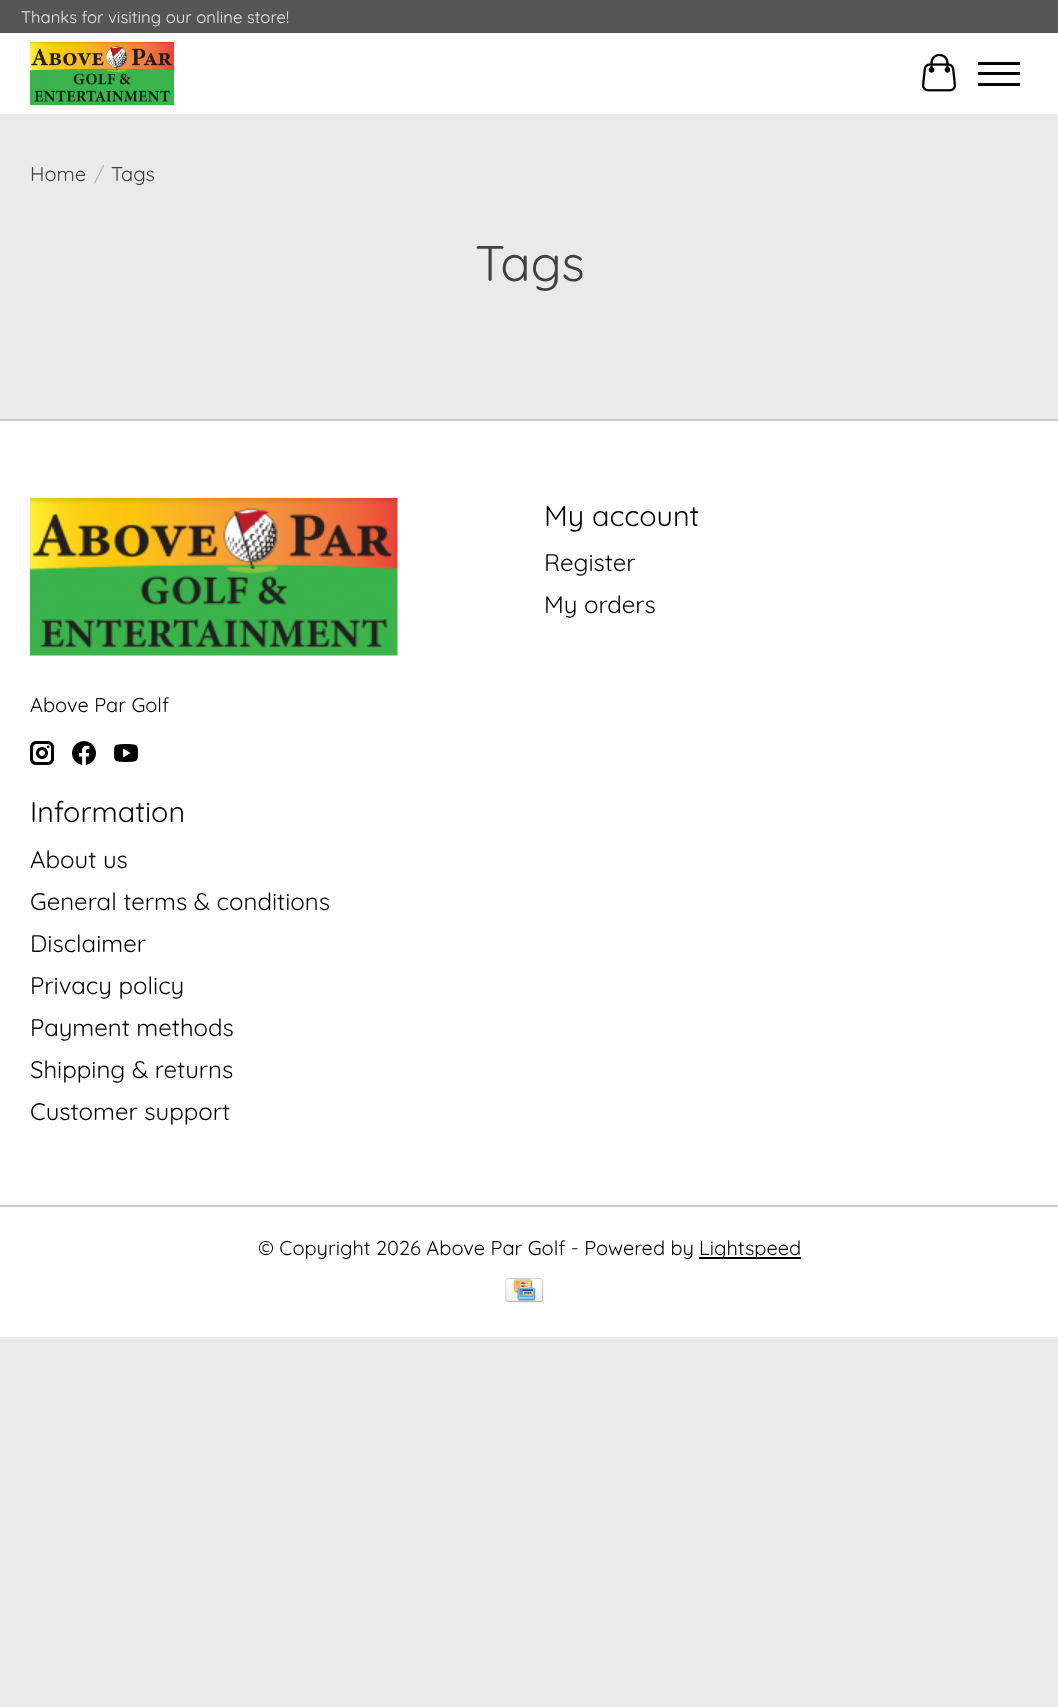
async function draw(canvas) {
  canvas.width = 1058;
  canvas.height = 1707;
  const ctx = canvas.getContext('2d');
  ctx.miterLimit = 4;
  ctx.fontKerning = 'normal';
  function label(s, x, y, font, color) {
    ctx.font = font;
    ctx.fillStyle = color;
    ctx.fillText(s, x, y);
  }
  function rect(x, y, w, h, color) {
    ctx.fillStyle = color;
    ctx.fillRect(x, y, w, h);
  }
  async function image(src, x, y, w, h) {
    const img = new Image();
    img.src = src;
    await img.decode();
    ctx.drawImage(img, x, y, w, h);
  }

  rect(0, 0, 1058, 1707, '#eaeaea');
  rect(0, 33, 1058, 81, '#fff');
  rect(0, 0, 1058, 33, '#565656');
  label('Thanks for visiting our online store!', 21, 23, '16.7px Quicksand', '#e4e4e4');
  await image('assets/img1.png', 30, 42, 144, 63);
  await image('assets/img2.png', 921, 54, 35, 38);
  rect(978, 72, 42, 3, '#000');
  rect(978, 62, 42, 3, '#000');
  rect(978, 83, 42, 3, '#000');
  label('Home', 30, 181, '20px Quicksand', '#414141');
  label('/', 94, 181, '20px Quicksand', '#b7b7b7');
  label('Tags', 111, 181, '20px Quicksand', '#414141');
  label('Tags', 475, 281, '50px Quicksand', '#414141');
  rect(0, 421, 1058, 916, '#fff');
  rect(0, 419, 1058, 2, '#ccc');
  label('My account', 544, 526, '28.75px Quicksand', '#000');
  label('Register', 544, 571, '24px Quicksand', '#000');
  label('My orders', 544, 613, '24px Quicksand', '#000');
  await image('assets/img3.png', 30, 498, 368, 158);
  label('Above Par Golf', 30, 712, '20px Quicksand', '#000');
  await image('assets/img4.png', 30, 741, 24, 24);
  await image('assets/img5.png', 72, 741, 24, 24);
  await image('assets/img6.png', 114, 744, 24, 18);
  label('Information', 30, 822, '28.75px Quicksand', '#000');
  label('About us', 30, 868, '24px Quicksand', '#000');
  label('General terms & conditions', 30, 910, '24px Quicksand', '#000');
  label('Disclaimer', 30, 952, '24px Quicksand', '#000');
  label('Privacy policy', 30, 994, '24px Quicksand', '#000');
  label('Payment methods', 30, 1036, '24px Quicksand', '#000');
  label('Shipping & returns', 30, 1078, '24px Quicksand', '#000');
  label('Customer support', 30, 1120, '24px Quicksand', '#000');
  rect(0, 1205, 1058, 2, '#ccc');
  label('© Copyright 2026 Above Par Golf - Powered by', 258, 1255, '20px Quicksand', '#000');
  rect(699, 1257, 102, 2, '#000');
  label('Lightspeed', 699, 1255, '20px Quicksand', '#000');
  await image('assets/img7.png', 505, 1278, 38, 24);
}

draw(document.querySelector('canvas'));
